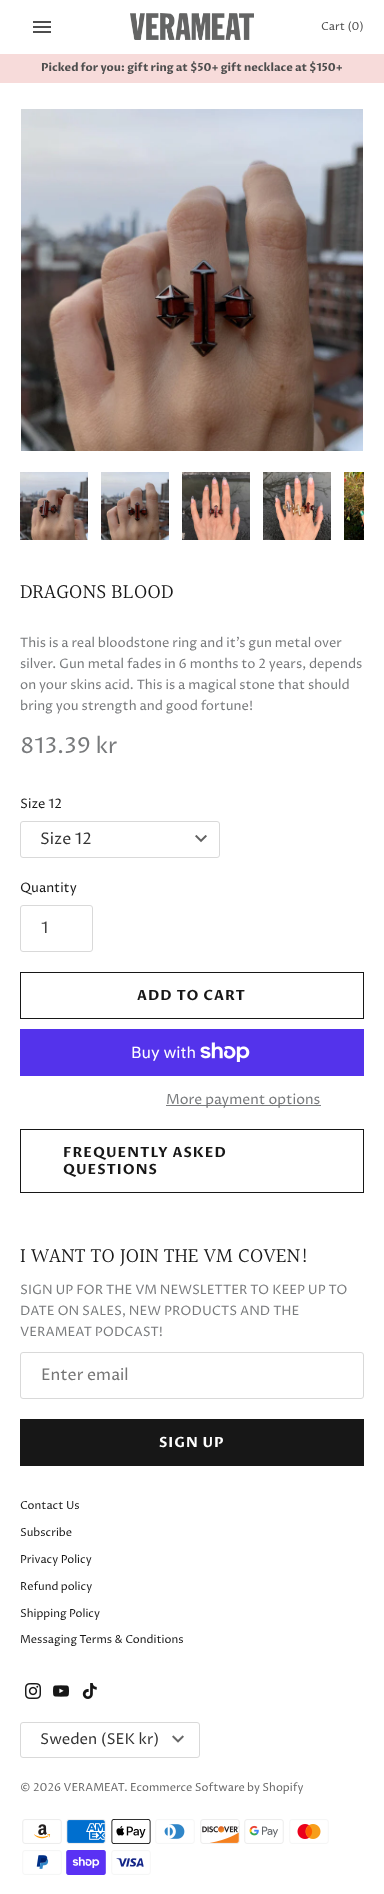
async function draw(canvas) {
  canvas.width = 384;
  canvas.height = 1894;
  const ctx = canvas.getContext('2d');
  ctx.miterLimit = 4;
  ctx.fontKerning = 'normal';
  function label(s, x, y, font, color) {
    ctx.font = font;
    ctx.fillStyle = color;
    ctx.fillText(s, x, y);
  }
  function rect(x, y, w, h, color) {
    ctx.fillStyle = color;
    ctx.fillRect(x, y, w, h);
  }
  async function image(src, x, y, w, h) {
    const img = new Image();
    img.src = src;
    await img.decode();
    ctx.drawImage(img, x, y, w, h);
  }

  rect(0, 0, 384, 1894, '#fff');
  await image('assets/img1.png', 33, 21, 18, 12);
  await image('assets/img2.png', 130, 13, 124, 27);
  label('Cart (0)', 321, 30, '11.05px Proza Libre', '#4e4e4e');
  rect(0, 54, 384, 29, '#f7dbda');
  label('Picked for you: gift ring at $50+ gift necklace at $150+', 41, 71, 'bold 11.05px Proza Libre', '#4e4e4e');
  await image('assets/img3.png', 21, 109, 342, 342);
  await image('assets/img4.png', 20, 472, 68, 68);
  await image('assets/img5.png', 101, 472, 68, 68);
  await image('assets/img6.png', 182, 472, 68, 68);
  await image('assets/img7.png', 263, 472, 68, 68);
  await image('assets/img8.png', 344, 472, 20, 68);
  label('DRAGONS BLOOD', 20, 599, '20.75px Halant', '#171717');
  label('This is a real bloodstone ring and it’s gun metal over', 20, 647, '13px Proza Libre', '#787a7c');
  label('silver. Gun metal fades in 6 months to 2 years, depends', 20, 668, '13px Proza Libre', '#787a7c');
  label('on your skins acid. This is a magical stone that should', 20, 689, '13px Proza Libre', '#787a7c');
  label('bring you strength and good fortune!', 20, 710, '13px Proza Libre', '#787a7c');
  label('813.39 kr', 20, 753, '22px Proza Libre', '#787a7c');
  label('Size 12', 20, 808, '13px Proza Libre', '#171717');
  await image('assets/img9.png', 195, 835, 12, 8);
  ctx.beginPath();
  ctx.roundRect(20.5, 821.5, 199, 36, 2.5);
  ctx.strokeStyle = '#d9d9d9';
  ctx.stroke();
  label('Size 12', 40, 844, '16px Proza Libre', '#333');
  label('Quantity', 20, 892, '13px Proza Libre', '#171717');
  ctx.beginPath();
  ctx.roundRect(20.5, 905.5, 72, 46, 2.5);
  ctx.stroke();
  label('1', 41, 933, '16px Proza Libre', '#444');
  ctx.strokeStyle = '#171717';
  ctx.strokeRect(20.5, 972.5, 343, 46);
  ctx.letterSpacing = '1px';
  label('ADD TO CART', 137, 1000, 'bold 14px Proza Libre', '#171717');
  rect(20, 1029, 344, 47, '#5433eb');
  ctx.letterSpacing = '0px';
  label('Buy with', 131, 1058, '16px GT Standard', '#fff');
  await image('assets/img10.png', 200, 1042, 50, 20);
  rect(166, 1105, 155, 1, '#787a7c');
  label('More payment options', 166, 1104, '14px Proza Libre', '#787a7c');
  ctx.strokeRect(20.5, 1129.5, 343, 63);
  ctx.letterSpacing = '1px';
  label('FREQUENTLY ASKED', 63, 1157, 'bold 14px Proza Libre', '#171717');
  label('QUESTIONS', 63, 1174, 'bold 14px Proza Libre', '#171717');
  ctx.letterSpacing = '0px';
  label('I WANT TO JOIN THE VM COVEN!', 20, 1263, '20.75px Halant', '#171717');
  label('SIGN UP FOR THE VM NEWSLETTER TO KEEP UP TO', 20, 1294, '13px Proza Libre', '#787a7c');
  label('DATE ON SALES, NEW PRODUCTS AND THE', 20, 1315, '13px Proza Libre', '#787a7c');
  label('VERAMEAT PODCAST!', 20, 1336, '13px Proza Libre', '#787a7c');
  ctx.beginPath();
  ctx.roundRect(20.5, 1352.5, 343, 46, 2.5);
  ctx.strokeStyle = '#d9d9d9';
  ctx.stroke();
  label('Enter email', 41, 1380, '16px Proza Libre', '#757575');
  rect(20, 1419, 344, 47, '#171717');
  ctx.letterSpacing = '1px';
  label('SIGN UP', 159, 1447, 'bold 14px Proza Libre', '#fff');
  ctx.letterSpacing = '0px';
  label('Contact Us', 20, 1509, '11.05px Proza Libre', '#171717');
  label('Subscribe', 20, 1536, '11.05px Proza Libre', '#171717');
  label('Privacy Policy', 20, 1563, '11.05px Proza Libre', '#171717');
  label('Refund policy', 20, 1590, '11.05px Proza Libre', '#171717');
  label('Shipping Policy', 20, 1617, '11.05px Proza Libre', '#171717');
  label('Messaging Terms & Conditions', 20, 1643, '11.05px Proza Libre', '#171717');
  await image('assets/img11.png', 25, 1683, 16, 16);
  await image('assets/img12.png', 53, 1685, 16, 12);
  await image('assets/img13.png', 82, 1683, 15, 16);
  ctx.beginPath();
  ctx.roundRect(20.5, 1722.5, 179, 35, 2.5);
  ctx.stroke();
  label('Sweden (SEK kr)', 40, 1744, '15px Proza Libre', '#333');
  await image('assets/img14.png', 172, 1735, 12, 8);
  label('© 2026 VERAMEAT.', 20, 1791, '11.05px Proza Libre', '#686868');
  label('Ecommerce Software by Shopify', 130, 1791, '11.05px Proza Libre', '#686868');
  await image('assets/img15.png', 22, 1819, 40, 25);
  await image('assets/img16.png', 66, 1819, 40, 25);
  await image('assets/img17.png', 111, 1819, 40, 25);
  await image('assets/img18.png', 155, 1819, 40, 25);
  await image('assets/img19.png', 200, 1819, 40, 25);
  await image('assets/img20.png', 244, 1819, 40, 25);
  await image('assets/img21.png', 289, 1819, 40, 25);
  await image('assets/img22.png', 22, 1850, 40, 25);
  await image('assets/img23.png', 66, 1850, 40, 25);
  await image('assets/img24.png', 111, 1850, 40, 25);
}

draw(document.querySelector('canvas'));
